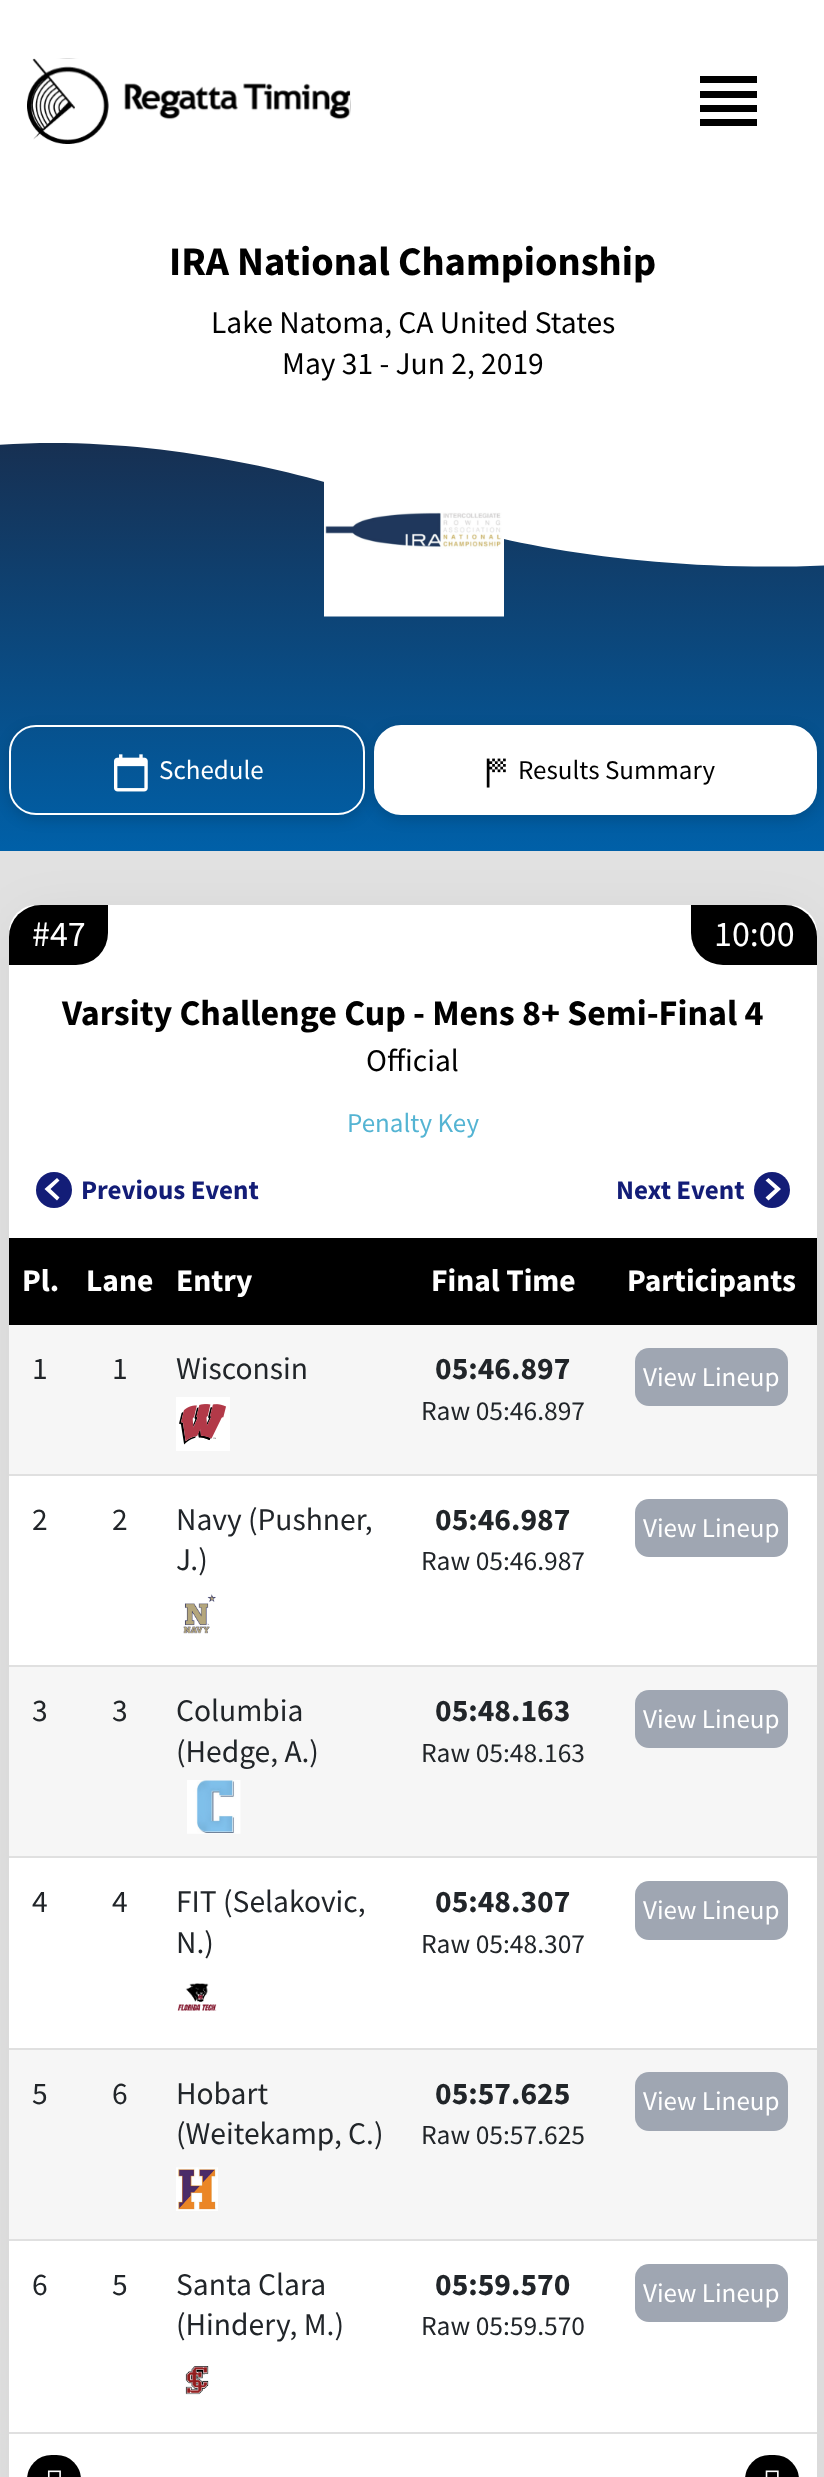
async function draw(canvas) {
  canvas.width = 824;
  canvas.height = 2477;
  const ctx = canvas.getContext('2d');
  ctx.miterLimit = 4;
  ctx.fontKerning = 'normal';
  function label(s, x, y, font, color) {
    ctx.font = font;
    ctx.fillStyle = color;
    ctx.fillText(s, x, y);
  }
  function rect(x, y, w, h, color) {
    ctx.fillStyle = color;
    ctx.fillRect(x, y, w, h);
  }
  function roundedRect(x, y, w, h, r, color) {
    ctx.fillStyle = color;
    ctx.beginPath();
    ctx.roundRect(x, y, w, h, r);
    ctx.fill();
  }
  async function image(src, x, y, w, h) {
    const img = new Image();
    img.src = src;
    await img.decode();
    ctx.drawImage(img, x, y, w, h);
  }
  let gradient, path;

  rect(0, 0, 824, 2477, '#e1e1e1');
  rect(0, 0, 824, 419, '#fff');
  await image('assets/img1.png', 27, 58, 324, 86);
  ctx.fillStyle = '#000';
  path = new Path2D('M700 112H757V105H700ZM700 126H757V119H700ZM700 98H757V91H700ZM700 76V83H757V76Z');
  ctx.fill(path);
  label('IRA National Championship', 169, 275, 'bold 40.5px Source Sans Pro', '#000');
  label('Lake Natoma, CA United States', 211, 333, '31.5px Source Sans Pro', '#000');
  label('May 31 - Jun 2, 2019', 282, 374, '31.5px Source Sans Pro', '#000');
  ctx.fillStyle = '#00000012';
  ctx.filter = 'blur(28px)';
  ctx.beginPath();
  ctx.roundRect(20, 920, 786, 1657, 16);
  ctx.fill();
  ctx.filter = 'none';
  gradient = ctx.createLinearGradient(413, 418, 413, 851);
  gradient.addColorStop(0, '#182d4d');
  gradient.addColorStop(1, '#0060a8');
  ctx.fillStyle = gradient;
  ctx.fillRect(0, 443, 824, 408);
  ctx.save();
  ctx.beginPath();
  ctx.rect(0, 419, 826, 202);
  ctx.clip();
  ctx.fillStyle = '#fff';
  path = new Path2D('M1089 414L-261 417L-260 514C-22 392 245 455 382 499C391 502 398 503 412 510C513 558 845 605 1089 518Z');
  ctx.fill(path);
  ctx.restore();
  await image('assets/img2.png', 324, 481, 180, 136);
  ctx.save();
  path = new Path2D('M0 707H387V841H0ZM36 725H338C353 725 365 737 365 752V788C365 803 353 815 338 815H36C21 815 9 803 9 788V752C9 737 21 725 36 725Z');
  ctx.clip(path, 'evenodd');
  ctx.fillStyle = '#00000026';
  ctx.filter = 'blur(7px)';
  ctx.beginPath();
  ctx.roundRect(9, 729, 356, 90, 27);
  ctx.fill();
  ctx.filter = 'none';
  ctx.restore();
  ctx.beginPath();
  ctx.roundRect(10, 726, 354, 88, 26);
  ctx.strokeStyle = '#fff';
  ctx.lineWidth = 2;
  ctx.stroke();
  await image('assets/img3.png', 114, 754, 34, 38);
  label('Schedule', 159, 779, '27px Source Sans Pro', '#fff');
  ctx.fillStyle = '#00000026';
  ctx.filter = 'blur(7px)';
  ctx.beginPath();
  ctx.roundRect(374, 729, 443, 90, 27);
  ctx.fill();
  ctx.filter = 'none';
  ctx.fillStyle = '#fff';
  ctx.beginPath();
  ctx.roundRect(375, 726, 441, 88, 26);
  ctx.fill();
  ctx.stroke();
  await image('assets/img4.png', 486, 758, 20, 30);
  label('Results Summary', 518, 779, '27px Source Sans Pro', '#000');
  roundedRect(9, 905, 808, 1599, 27, '#fff');
  ctx.fillStyle = '#000';
  ctx.beginPath();
  ctx.roundRect(9, 905, 99, 60, [32, 0, 32, 0]);
  ctx.fill();
  label('#47', 32, 946, '36px Source Sans Pro', '#fff');
  ctx.fillStyle = '#000';
  ctx.beginPath();
  ctx.roundRect(691, 905, 126, 60, [0, 32, 0, 32]);
  ctx.fill();
  label('10:00', 714, 946, '36px Source Sans Pro', '#fff');
  label('Varsity Challenge Cup - Mens 8+ Semi-Final 4', 62, 1025, 'bold 36px Source Sans Pro', '#000');
  label('Official', 366, 1071, '31.5px Source Sans Pro', '#000');
  label('Penalty Key', 347, 1132, '27px Source Sans Pro', '#54b4d3');
  ctx.fillStyle = '#131d77';
  ctx.beginPath();
  ctx.arc(54, 1190, 18, 0, 2 * Math.PI);
  ctx.fill();
  ctx.fillStyle = '#fff';
  path = new Path2D('M59.5 1197.5L50.5 1189L59.5 1180.5L57 1178L44.5 1189L57 1200.5Z');
  ctx.fill(path);
  label('Previous Event', 81, 1199, 'bold 27px Source Sans Pro', '#131d77');
  label('Next Event', 616, 1199, 'bold 27px Source Sans Pro', '#131d77');
  ctx.beginPath();
  ctx.arc(772, 1190, 18, 0, 2 * Math.PI);
  ctx.fill();
  ctx.fillStyle = '#fff';
  path = new Path2D('M765.5 1180.5L775 1189L765.5 1197.5L768.5 1200.5L781 1189L768.5 1178Z');
  ctx.fill(path);
  rect(9, 1238, 808, 87, '#000');
  label('Pl.', 22, 1291, 'bold 31.5px Source Sans Pro', '#fff');
  label('Lane', 86, 1291, 'bold 31.5px Source Sans Pro', '#fff');
  label('Entry', 176, 1291, 'bold 31.5px Source Sans Pro', '#fff');
  label('Final Time', 431, 1291, 'bold 31.5px Source Sans Pro', '#fff');
  label('Participants', 627, 1291, 'bold 31.5px Source Sans Pro', '#fff');
  rect(9, 1325, 808, 149, '#f6f6f6');
  label('1', 32, 1379, '31.5px Source Sans Pro', '#212529');
  label('1', 112, 1379, '31.5px Source Sans Pro', '#212529');
  label('Wisconsin', 176, 1379, '31.5px Source Sans Pro', '#212529');
  await image('assets/img5.png', 176, 1397, 54, 54);
  label('05:46.897', 435, 1379, 'bold 31.5px Source Sans Pro', '#212529');
  label('Raw 05:46.897', 421, 1420, '27.5px Source Sans Pro', '#212529');
  rect(9, 1474, 808, 2, '#e0e0e0');
  roundedRect(635, 1348, 153, 58, 14, '#9fa6b2');
  label('View Lineup', 643, 1386, '27px Source Sans Pro', '#fff');
  label('2', 32, 1530, '31.5px Source Sans Pro', '#212529');
  label('2', 112, 1530, '31.5px Source Sans Pro', '#212529');
  label('Navy (Pushner,', 176, 1530, '31.5px Source Sans Pro', '#212529');
  label('J.)', 176, 1570, '31.5px Source Sans Pro', '#212529');
  await image('assets/img6.png', 183, 1594, 33, 40);
  label('05:46.987', 435, 1530, 'bold 31.5px Source Sans Pro', '#212529');
  label('Raw 05:46.987', 421, 1570, '27.5px Source Sans Pro', '#212529');
  rect(9, 1665, 808, 2, '#e0e0e0');
  roundedRect(635, 1499, 153, 58, 14, '#9fa6b2');
  label('View Lineup', 643, 1537, '27px Source Sans Pro', '#fff');
  rect(9, 1667, 808, 189, '#f6f6f6');
  label('3', 32, 1721, '31.5px Source Sans Pro', '#212529');
  label('3', 112, 1721, '31.5px Source Sans Pro', '#212529');
  label('Columbia', 176, 1721, '31.5px Source Sans Pro', '#212529');
  label('(Hedge, A.)', 176, 1762, '31.5px Source Sans Pro', '#212529');
  await image('assets/img7.png', 187, 1780, 54, 54);
  label('05:48.163', 435, 1721, 'bold 31.5px Source Sans Pro', '#212529');
  label('Raw 05:48.163', 421, 1762, '27.5px Source Sans Pro', '#212529');
  rect(9, 1856, 808, 2, '#e0e0e0');
  roundedRect(635, 1690, 153, 58, 14, '#9fa6b2');
  label('View Lineup', 643, 1728, '27px Source Sans Pro', '#fff');
  label('4', 32, 1912, '31.5px Source Sans Pro', '#212529');
  label('4', 112, 1912, '31.5px Source Sans Pro', '#212529');
  label('FIT (Selakovic,', 176, 1912, '31.5px Source Sans Pro', '#212529');
  label('N.)', 176, 1953, '31.5px Source Sans Pro', '#212529');
  await image('assets/img8.png', 177, 1983, 40, 28);
  label('05:48.307', 435, 1912, 'bold 31.5px Source Sans Pro', '#212529');
  label('Raw 05:48.307', 421, 1953, '27.5px Source Sans Pro', '#212529');
  rect(9, 2048, 808, 2, '#e0e0e0');
  roundedRect(635, 1881, 153, 59, 14, '#9fa6b2');
  label('View Lineup', 643, 1919, '27px Source Sans Pro', '#fff');
  rect(9, 2050, 808, 189, '#f6f6f6');
  label('5', 32, 2104, '31.5px Source Sans Pro', '#212529');
  label('6', 112, 2104, '31.5px Source Sans Pro', '#212529');
  label('Hobart', 176, 2104, '31.5px Source Sans Pro', '#212529');
  label('(Weitekamp, C.)', 176, 2144, '31.5px Source Sans Pro', '#212529');
  await image('assets/img9.png', 176, 2167, 42, 44);
  label('05:57.625', 435, 2104, 'bold 31.5px Source Sans Pro', '#212529');
  label('Raw 05:57.625', 421, 2144, '27.5px Source Sans Pro', '#212529');
  rect(9, 2239, 808, 2, '#e0e0e0');
  roundedRect(635, 2072, 153, 59, 14, '#9fa6b2');
  label('View Lineup', 643, 2110, '27px Source Sans Pro', '#fff');
  label('6', 32, 2295, '31.5px Source Sans Pro', '#212529');
  label('5', 112, 2295, '31.5px Source Sans Pro', '#212529');
  label('Santa Clara', 176, 2295, '31.5px Source Sans Pro', '#212529');
  label('(Hindery, M.)', 176, 2335, '31.5px Source Sans Pro', '#212529');
  await image('assets/img10.png', 185, 2366, 24, 29);
  label('05:59.570', 435, 2295, 'bold 31.5px Source Sans Pro', '#212529');
  label('Raw 05:59.570', 421, 2335, '27.5px Source Sans Pro', '#212529');
  roundedRect(635, 2264, 153, 58, 14, '#9fa6b2');
  label('View Lineup', 643, 2302, '27px Source Sans Pro', '#fff');
  rect(9, 2432, 808, 2, '#e0e0e0');
  roundedRect(27, 2455, 54, 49, 27, '#000');
  await image('assets/img11.png', 47, 2470, 14, 7);
  roundedRect(745, 2455, 54, 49, 27, '#000');
  await image('assets/img12.png', 765, 2470, 14, 7);
}

draw(document.querySelector('canvas'));
